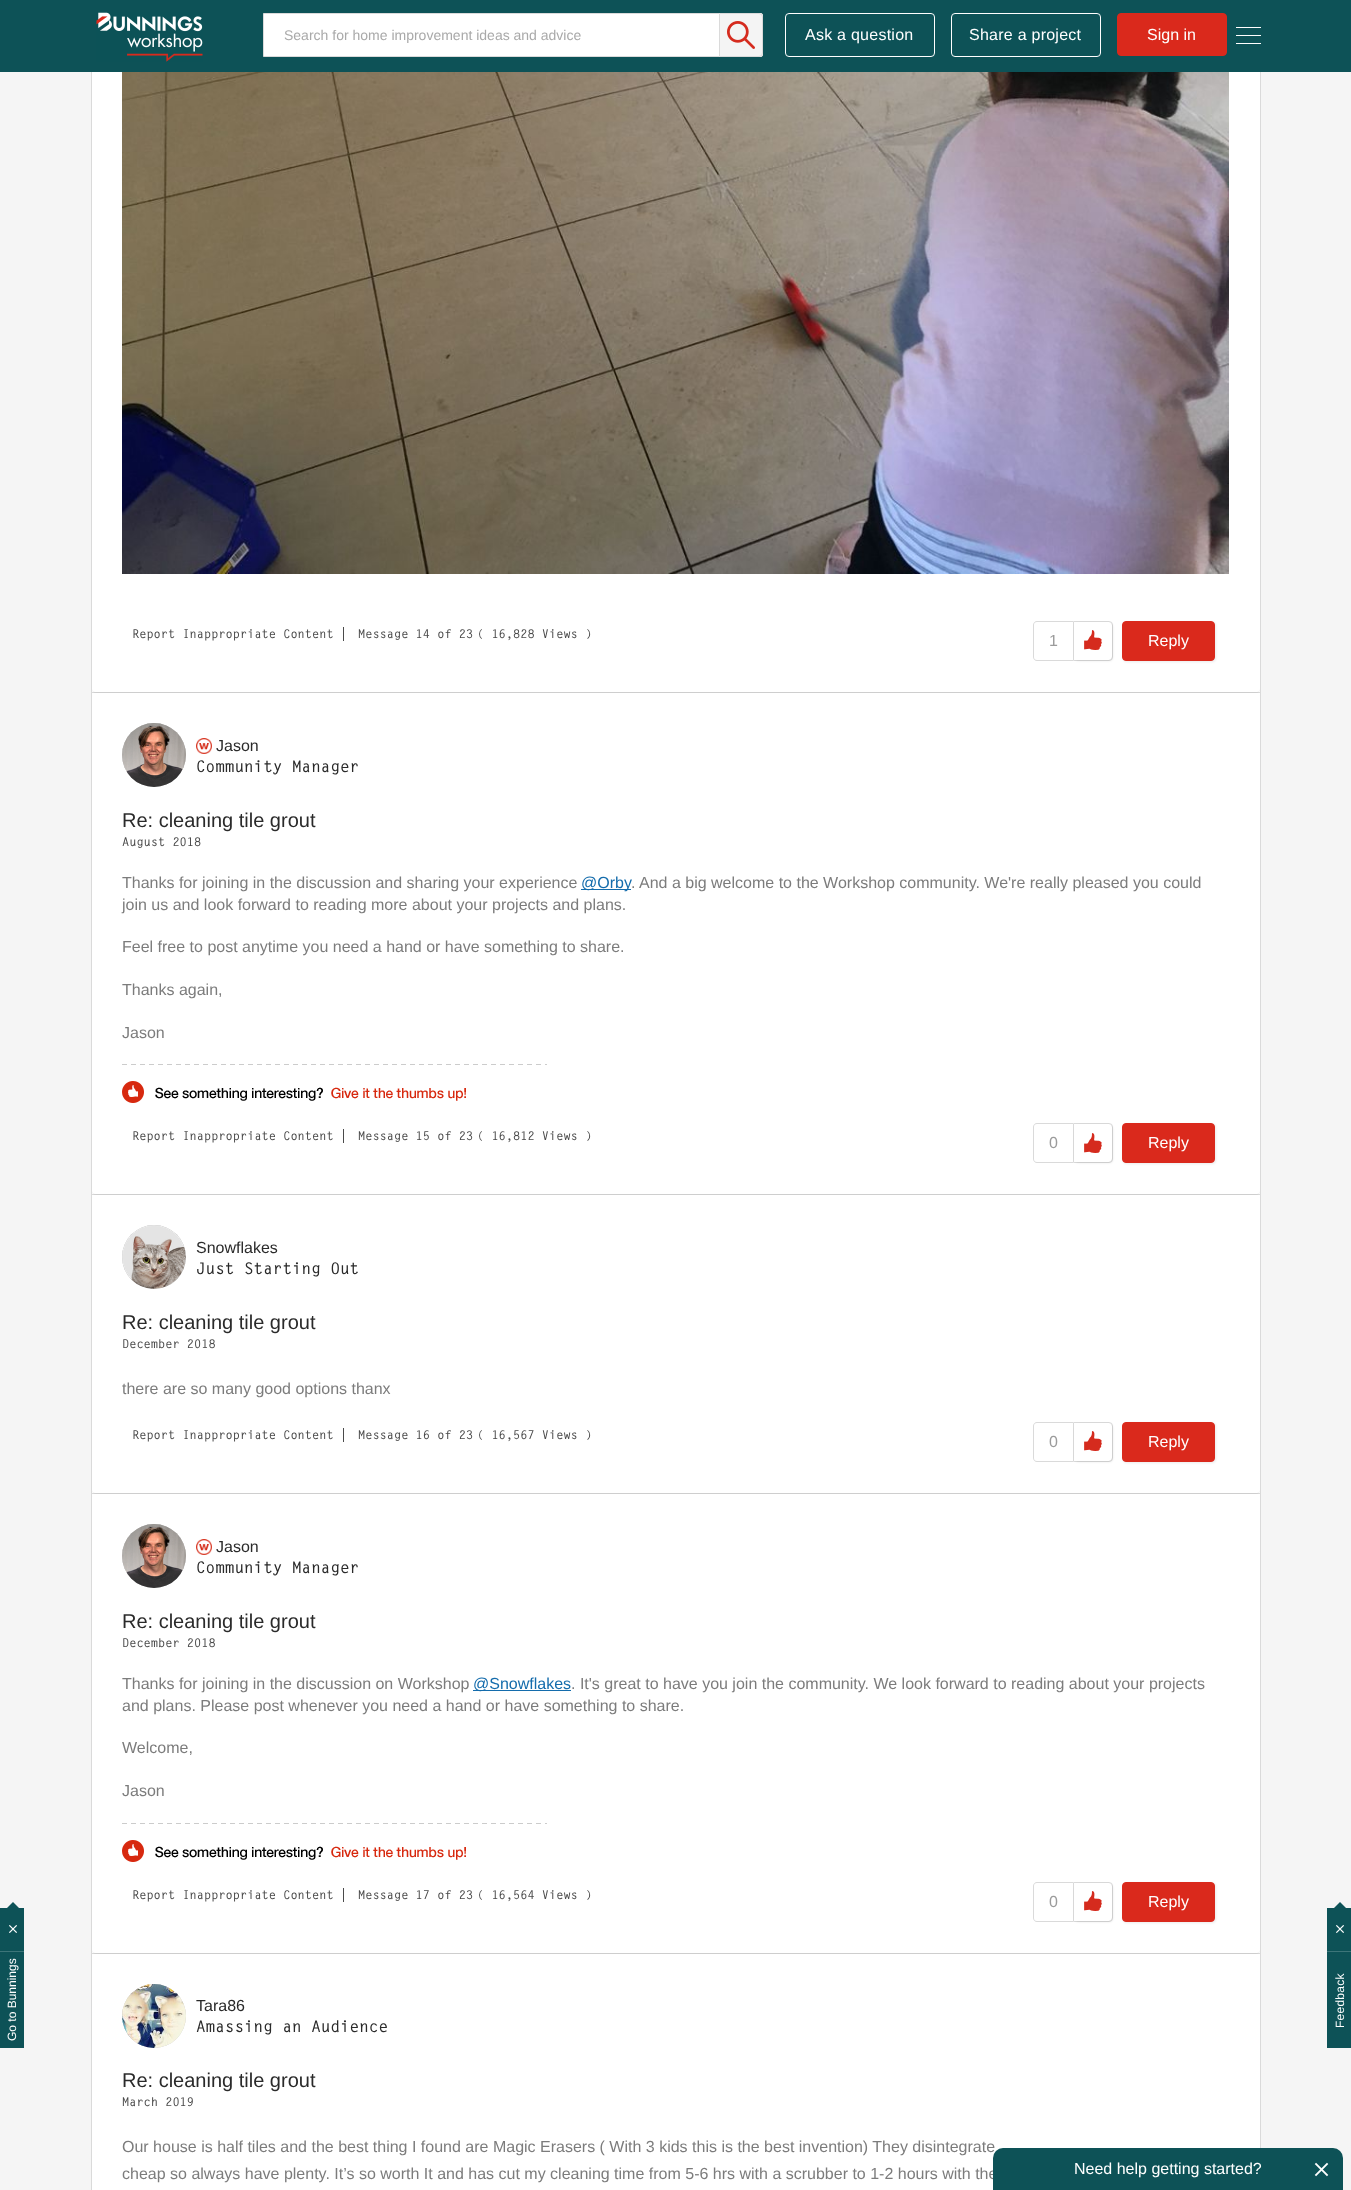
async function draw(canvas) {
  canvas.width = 1351;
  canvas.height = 2190;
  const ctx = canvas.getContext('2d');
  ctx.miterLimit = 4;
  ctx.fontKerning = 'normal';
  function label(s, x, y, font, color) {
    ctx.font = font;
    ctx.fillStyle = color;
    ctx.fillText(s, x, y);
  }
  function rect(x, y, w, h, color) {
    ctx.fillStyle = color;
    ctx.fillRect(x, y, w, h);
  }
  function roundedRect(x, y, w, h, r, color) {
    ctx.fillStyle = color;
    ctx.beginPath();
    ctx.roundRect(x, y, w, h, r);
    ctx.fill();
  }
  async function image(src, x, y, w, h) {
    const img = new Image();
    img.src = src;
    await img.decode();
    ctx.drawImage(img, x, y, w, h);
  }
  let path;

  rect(0, 0, 1351, 2190, '#f5f5f5');
  rect(0, 1908, 24, 140, '#0d5257');
  path = new Path2D('M21 1910H5L13 1902Z');
  ctx.fill(path);
  await image('assets/img1.png', 9, 1925, 8, 8);
  rect(0, 1951, 24, 1, '#3d7579');
  ctx.font = '12px Liberation Sans';
  ctx.fillStyle = '#fff';
  ctx.save();
  ctx.translate(16, 2041);
  ctx.rotate(-90 * Math.PI / 180);
  ctx.fillText('Go to Bunnings', 0, 0);
  ctx.restore();
  ctx.strokeStyle = '#dadada';
  ctx.strokeRect(91.5, -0.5, 1169, 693);
  rect(92, 688, 1168, 4, '#fff');
  ctx.strokeRect(91.5, 692.5, 1169, 502);
  rect(92, 693, 1168, 501, '#fff');
  ctx.fillStyle = '#0000000d';
  ctx.filter = 'blur(0.5px)';
  ctx.beginPath();
  ctx.roundRect(92, -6, 1168, 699, 4);
  ctx.fill();
  ctx.filter = 'none';
  roundedRect(92, -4, 1168, 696, 4, '#fff');
  rect(0, 0, 1351, 72, '#0d5257');
  await image('assets/img2.png', 96, 12, 107, 50);
  ctx.fillStyle = '#fff';
  ctx.beginPath();
  ctx.roundRect(263.5, 13.5, 499, 43, [0, 1.5, 1.5, 0]);
  ctx.fill();
  ctx.stroke();
  label('Search for home improvement ideas and advice', 284, 40, '14px Liberation Sans', '#a9a9a9');
  ctx.fillStyle = '#f4f4f4';
  ctx.beginPath();
  ctx.roundRect(719, 13, 44, 44, [0, 4, 4, 0]);
  ctx.fill();
  await image('assets/img3.png', 727, 21, 28, 28);
  ctx.beginPath();
  ctx.roundRect(719.5, 13.5, 43, 43, [0, 3.5, 3.5, 0]);
  ctx.stroke();
  ctx.beginPath();
  ctx.roundRect(785.5, 13.5, 149, 43, 3.5);
  ctx.strokeStyle = '#fff';
  ctx.stroke();
  ctx.letterSpacing = '0.25px';
  label('Ask a question', 805, 40, '16px Liberation Sans', '#fff');
  ctx.beginPath();
  ctx.roundRect(951.5, 13.5, 149, 43, 3.5);
  ctx.stroke();
  label('Share a project', 969, 40, '16px Liberation Sans', '#fff');
  ctx.fillStyle = '#da291c';
  ctx.beginPath();
  ctx.roundRect(1117.5, 13.5, 109, 42, 3.5);
  ctx.fill();
  ctx.strokeStyle = '#da291c';
  ctx.stroke();
  ctx.letterSpacing = '0px';
  label('Sign in', 1147, 40, '16px Liberation Sans', '#fff');
  rect(1236, 27, 25, 1, '#fff');
  rect(1236, 35, 25, 1, '#fff');
  rect(1236, 43, 25, 1, '#fff');
  await image('assets/img4.png', 122, 72, 1107, 502);
  label('Report Inappropriate Content', 132, 638, 'bold 12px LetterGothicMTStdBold', '#4a4a4a');
  rect(343, 627, 1, 14, '#4a4a4a');
  label('Message 14 of 23', 358, 638, 'bold 12px LetterGothicMTStdBold', '#4a4a4a');
  label('( 16,828 Views )', 477, 638, 'bold 12px LetterGothicMTStdBold', '#4a4a4a');
  ctx.fillStyle = '#dadada';
  path = new Path2D('M1037 621H1073V661H1037C1035 661 1033 659 1033 657V625C1033 623 1035 621 1037 621ZM1037 622H1073V660H1037C1035 660 1034 659 1034 657V625C1034 623 1035 622 1037 622Z');
  ctx.fill(path, 'evenodd');
  label('1', 1049, 646, '16px Liberation Sans', '#9b9b9b');
  ctx.beginPath();
  ctx.roundRect(1073.5, 621.5, 39, 39, [0, 3.5, 3.5, 0]);
  ctx.strokeStyle = '#dadada';
  ctx.stroke();
  ctx.save();
  path = new Path2D('M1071 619H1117V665H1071ZM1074 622H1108C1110 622 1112 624 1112 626V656C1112 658 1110 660 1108 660H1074Z');
  ctx.clip(path, 'evenodd');
  ctx.fillStyle = '#00000014';
  ctx.filter = 'blur(1px)';
  ctx.beginPath();
  ctx.roundRect(1075, 623, 38, 38, 4);
  ctx.fill();
  ctx.filter = 'none';
  ctx.restore();
  await image('assets/img5.png', 1084, 630, 18, 20);
  ctx.fillStyle = '#00000014';
  ctx.filter = 'blur(1px)';
  ctx.beginPath();
  ctx.roundRect(1123, 622, 93, 40, 4);
  ctx.fill();
  ctx.filter = 'none';
  ctx.fillStyle = '#da291c';
  ctx.beginPath();
  ctx.roundRect(1122.5, 621.5, 92, 39, 3.5);
  ctx.fill();
  ctx.strokeStyle = '#da291c';
  ctx.stroke();
  label('Reply', 1148, 646, '16px Liberation Sans', '#fff');
  ctx.strokeStyle = '#dadada';
  ctx.strokeRect(91.5, 1194.5, 1169, 299);
  rect(92, 1195, 1168, 298, '#fff');
  ctx.fillStyle = '#0000000d';
  ctx.filter = 'blur(0.5px)';
  ctx.beginPath();
  ctx.roundRect(92, 694, 1168, 501, 4);
  ctx.fill();
  ctx.filter = 'none';
  roundedRect(92, 693, 1168, 501, 4, '#fff');
  ctx.fillStyle = '#c4c4c4';
  ctx.filter = 'blur(0.5px)';
  ctx.beginPath();
  ctx.roundRect(122, 723, 64, 64, 32);
  ctx.fill();
  ctx.filter = 'none';
  await image('assets/img6.png', 122, 723, 64, 64);
  await image('assets/img7.png', 196, 738, 16, 16);
  label('Jason', 216, 751, '16px Liberation Sans', '#2a2a2a');
  label('Community Manager', 196, 772, 'bold 16px LetterGothicMTStdBold', '#2a2a2a');
  label('Re: cleaning tile grout', 122, 827, '20px Liberation Sans', '#2a2a2a');
  label('August 2018', 122, 846, 'bold 12px LetterGothicMTStdBold', '#4a4a4a');
  label('Thanks for joining in the discussion and sharing your experience', 122, 888, '16px Liberation Sans', '#7c7c7c');
  rect(581, 889, 50, 1, '#146cac');
  label('@Orby', 581, 888, '16px Liberation Sans', '#146cac');
  label('. And a big welcome to the Workshop community. We\'re really pleased you could', 631, 888, '16px Liberation Sans', '#7c7c7c');
  label('join us and look forward to reading more about your projects and plans.', 122, 910, '16px Liberation Sans', '#7c7c7c');
  label('Feel free to post anytime you need a hand or have something to share.', 122, 952, '16px Liberation Sans', '#7c7c7c');
  label('Thanks again,', 122, 995, '16px Liberation Sans', '#7c7c7c');
  label('Jason', 122, 1038, '16px Liberation Sans', '#7c7c7c');
  await image('assets/img8.png', 122, 1064, 425, 39);
  label('Report Inappropriate Content', 132, 1140, 'bold 12px LetterGothicMTStdBold', '#4a4a4a');
  rect(343, 1129, 1, 14, '#4a4a4a');
  label('Message 15 of 23', 358, 1140, 'bold 12px LetterGothicMTStdBold', '#4a4a4a');
  label('( 16,812 Views )', 477, 1140, 'bold 12px LetterGothicMTStdBold', '#4a4a4a');
  ctx.fillStyle = '#dadada';
  path = new Path2D('M1037 1123H1073V1163H1037C1035 1163 1033 1161 1033 1159V1127C1033 1125 1035 1123 1037 1123ZM1037 1124H1073V1162H1037C1035 1162 1034 1161 1034 1159V1127C1034 1125 1035 1124 1037 1124Z');
  ctx.fill(path, 'evenodd');
  label('0', 1049, 1148, '16px Liberation Sans', '#9b9b9b');
  ctx.beginPath();
  ctx.roundRect(1073.5, 1123.5, 39, 39, [0, 3.5, 3.5, 0]);
  ctx.stroke();
  ctx.save();
  path = new Path2D('M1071 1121H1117V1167H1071ZM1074 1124H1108C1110 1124 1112 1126 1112 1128V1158C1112 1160 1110 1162 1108 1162H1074Z');
  ctx.clip(path, 'evenodd');
  ctx.fillStyle = '#00000014';
  ctx.filter = 'blur(1px)';
  ctx.beginPath();
  ctx.roundRect(1075, 1125, 38, 38, 4);
  ctx.fill();
  ctx.filter = 'none';
  ctx.restore();
  await image('assets/img5.png', 1084, 1133, 18, 20);
  ctx.fillStyle = '#00000014';
  ctx.filter = 'blur(1px)';
  ctx.beginPath();
  ctx.roundRect(1123, 1124, 93, 40, 4);
  ctx.fill();
  ctx.filter = 'none';
  ctx.fillStyle = '#da291c';
  ctx.beginPath();
  ctx.roundRect(1122.5, 1123.5, 92, 39, 3.5);
  ctx.fill();
  ctx.strokeStyle = '#da291c';
  ctx.stroke();
  label('Reply', 1148, 1148, '16px Liberation Sans', '#fff');
  ctx.strokeStyle = '#dadada';
  ctx.strokeRect(91.5, 1493.5, 1169, 460);
  rect(92, 1494, 1168, 459, '#fff');
  ctx.fillStyle = '#0000000d';
  ctx.filter = 'blur(0.5px)';
  ctx.beginPath();
  ctx.roundRect(92, 1196, 1168, 298, 4);
  ctx.fill();
  ctx.filter = 'none';
  roundedRect(92, 1195, 1168, 298, 4, '#fff');
  ctx.fillStyle = '#c4c4c4';
  ctx.filter = 'blur(0.5px)';
  ctx.beginPath();
  ctx.roundRect(122, 1225, 64, 64, 32);
  ctx.fill();
  ctx.filter = 'none';
  await image('assets/img9.png', 122, 1225, 64, 64);
  label('Snowflakes', 196, 1253, '16px Liberation Sans', '#2a2a2a');
  label('Just Starting Out', 196, 1274, 'bold 16px LetterGothicMTStdBold', '#2a2a2a');
  label('Re: cleaning tile grout', 122, 1329, '20px Liberation Sans', '#2a2a2a');
  label('December 2018', 122, 1348, 'bold 12px LetterGothicMTStdBold', '#4a4a4a');
  label('there are so many good options thanx', 122, 1394, '16px Liberation Sans', '#7c7c7c');
  label('Report Inappropriate Content', 132, 1439, 'bold 12px LetterGothicMTStdBold', '#4a4a4a');
  rect(343, 1428, 1, 14, '#4a4a4a');
  label('Message 16 of 23', 358, 1439, 'bold 12px LetterGothicMTStdBold', '#4a4a4a');
  label('( 16,567 Views )', 477, 1439, 'bold 12px LetterGothicMTStdBold', '#4a4a4a');
  ctx.fillStyle = '#dadada';
  path = new Path2D('M1037 1422H1073V1462H1037C1035 1462 1033 1460 1033 1458V1426C1033 1424 1035 1422 1037 1422ZM1037 1423H1073V1461H1037C1035 1461 1034 1460 1034 1458V1426C1034 1424 1035 1423 1037 1423Z');
  ctx.fill(path, 'evenodd');
  label('0', 1049, 1447, '16px Liberation Sans', '#9b9b9b');
  ctx.beginPath();
  ctx.roundRect(1073.5, 1422.5, 39, 39, [0, 3.5, 3.5, 0]);
  ctx.stroke();
  ctx.save();
  path = new Path2D('M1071 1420H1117V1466H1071ZM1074 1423H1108C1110 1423 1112 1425 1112 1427V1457C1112 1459 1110 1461 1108 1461H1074Z');
  ctx.clip(path, 'evenodd');
  ctx.fillStyle = '#00000014';
  ctx.filter = 'blur(1px)';
  ctx.beginPath();
  ctx.roundRect(1075, 1424, 38, 38, 4);
  ctx.fill();
  ctx.filter = 'none';
  ctx.restore();
  await image('assets/img5.png', 1084, 1431, 18, 20);
  ctx.fillStyle = '#00000014';
  ctx.filter = 'blur(1px)';
  ctx.beginPath();
  ctx.roundRect(1123, 1423, 93, 40, 4);
  ctx.fill();
  ctx.filter = 'none';
  ctx.fillStyle = '#da291c';
  ctx.beginPath();
  ctx.roundRect(1122.5, 1422.5, 92, 39, 3.5);
  ctx.fill();
  ctx.strokeStyle = '#da291c';
  ctx.stroke();
  label('Reply', 1148, 1447, '16px Liberation Sans', '#fff');
  ctx.strokeStyle = '#dadada';
  ctx.strokeRect(91.5, 1953.5, 1169, 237);
  rect(92, 1954, 1168, 236, '#fff');
  ctx.fillStyle = '#0000000d';
  ctx.filter = 'blur(0.5px)';
  ctx.beginPath();
  ctx.roundRect(92, 1495, 1168, 459, 4);
  ctx.fill();
  ctx.filter = 'none';
  roundedRect(92, 1494, 1168, 459, 4, '#fff');
  ctx.fillStyle = '#c4c4c4';
  ctx.filter = 'blur(0.5px)';
  ctx.beginPath();
  ctx.roundRect(122, 1524, 64, 64, 32);
  ctx.fill();
  ctx.filter = 'none';
  await image('assets/img6.png', 122, 1524, 64, 64);
  await image('assets/img7.png', 196, 1539, 16, 16);
  label('Jason', 216, 1552, '16px Liberation Sans', '#2a2a2a');
  label('Community Manager', 196, 1573, 'bold 16px LetterGothicMTStdBold', '#2a2a2a');
  label('Re: cleaning tile grout', 122, 1628, '20px Liberation Sans', '#2a2a2a');
  label('December 2018', 122, 1647, 'bold 12px LetterGothicMTStdBold', '#4a4a4a');
  label('Thanks for joining in the discussion on Workshop', 122, 1689, '16px Liberation Sans', '#7c7c7c');
  rect(473, 1690, 98, 1, '#146cac');
  label('@Snowflakes', 473, 1689, '16px Liberation Sans', '#146cac');
  label('. It\'s great to have you join the community. We look forward to reading about your projects', 571, 1689, '16px Liberation Sans', '#7c7c7c');
  label('and plans. Please post whenever you need a hand or have something to share.', 122, 1711, '16px Liberation Sans', '#7c7c7c');
  label('Welcome,', 122, 1753, '16px Liberation Sans', '#7c7c7c');
  label('Jason', 122, 1796, '16px Liberation Sans', '#7c7c7c');
  await image('assets/img8.png', 122, 1823, 425, 39);
  label('Report Inappropriate Content', 132, 1899, 'bold 12px LetterGothicMTStdBold', '#4a4a4a');
  rect(343, 1888, 1, 14, '#4a4a4a');
  label('Message 17 of 23', 358, 1899, 'bold 12px LetterGothicMTStdBold', '#4a4a4a');
  label('( 16,564 Views )', 477, 1899, 'bold 12px LetterGothicMTStdBold', '#4a4a4a');
  ctx.fillStyle = '#dadada';
  path = new Path2D('M1037 1882H1073V1922H1037C1035 1922 1033 1920 1033 1918V1886C1033 1884 1035 1882 1037 1882ZM1037 1883H1073V1921H1037C1035 1921 1034 1920 1034 1918V1886C1034 1884 1035 1883 1037 1883Z');
  ctx.fill(path, 'evenodd');
  label('0', 1049, 1907, '16px Liberation Sans', '#9b9b9b');
  ctx.beginPath();
  ctx.roundRect(1073.5, 1882.5, 39, 39, [0, 3.5, 3.5, 0]);
  ctx.stroke();
  ctx.save();
  path = new Path2D('M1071 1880H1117V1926H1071ZM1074 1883H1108C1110 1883 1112 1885 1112 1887V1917C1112 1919 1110 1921 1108 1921H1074Z');
  ctx.clip(path, 'evenodd');
  ctx.fillStyle = '#00000014';
  ctx.filter = 'blur(1px)';
  ctx.beginPath();
  ctx.roundRect(1075, 1884, 38, 38, 4);
  ctx.fill();
  ctx.filter = 'none';
  ctx.restore();
  await image('assets/img5.png', 1084, 1891, 18, 20);
  ctx.fillStyle = '#00000014';
  ctx.filter = 'blur(1px)';
  ctx.beginPath();
  ctx.roundRect(1123, 1883, 93, 40, 4);
  ctx.fill();
  ctx.filter = 'none';
  ctx.fillStyle = '#da291c';
  ctx.beginPath();
  ctx.roundRect(1122.5, 1882.5, 92, 39, 3.5);
  ctx.fill();
  ctx.strokeStyle = '#da291c';
  ctx.stroke();
  label('Reply', 1148, 1907, '16px Liberation Sans', '#fff');
  ctx.fillStyle = '#c4c4c4';
  ctx.filter = 'blur(0.5px)';
  ctx.beginPath();
  ctx.roundRect(122, 1984, 64, 64, 32);
  ctx.fill();
  ctx.filter = 'none';
  await image('assets/img10.png', 122, 1984, 64, 64);
  label('Tara86', 196, 2011, '16px Liberation Sans', '#2a2a2a');
  label('Amassing an Audience', 196, 2032, 'bold 16px LetterGothicMTStdBold', '#2a2a2a');
  label('Re: cleaning tile grout', 122, 2087, '20px Liberation Sans', '#2a2a2a');
  label('March 2019', 122, 2106, 'bold 12px LetterGothicMTStdBold', '#4a4a4a');
  label('Our house is half tiles and the best thing I found are Magic Erasers ( With 3 kids this is the best invention) They disintegrate', 122, 2152, '16px Liberation Sans', '#7c7c7c');
  label('cheap so always have plenty. It’s so worth It and has cut my cleaning time from 5-6 hrs with a scrubber to 1-2 hours with the', 122, 2179, '16px Liberation Sans', '#7c7c7c');
  ctx.fillStyle = '#0d5257';
  ctx.beginPath();
  ctx.roundRect(993, 2148, 350, 42, [10, 10, 0, 0]);
  ctx.fill();
  label('Need help getting started?', 1074, 2174, '16px Liberation Sans', '#fff');
  await image('assets/img11.png', 1314, 2162, 15, 15);
  rect(1327, 1908, 24, 140, '#0d5257');
  path = new Path2D('M1348 1910H1332L1340 1902Z');
  ctx.fill(path);
  await image('assets/img1.png', 1336, 1925, 8, 8);
  rect(1327, 1951, 24, 1, '#3d7579');
  ctx.letterSpacing = '0.25px';
  ctx.font = '12px Liberation Sans';
  ctx.fillStyle = '#fff';
  ctx.save();
  ctx.translate(1344, 2028);
  ctx.rotate(-90 * Math.PI / 180);
  ctx.fillText('Feedback', 0, 0);
  ctx.restore();
}

draw(document.querySelector('canvas'));
